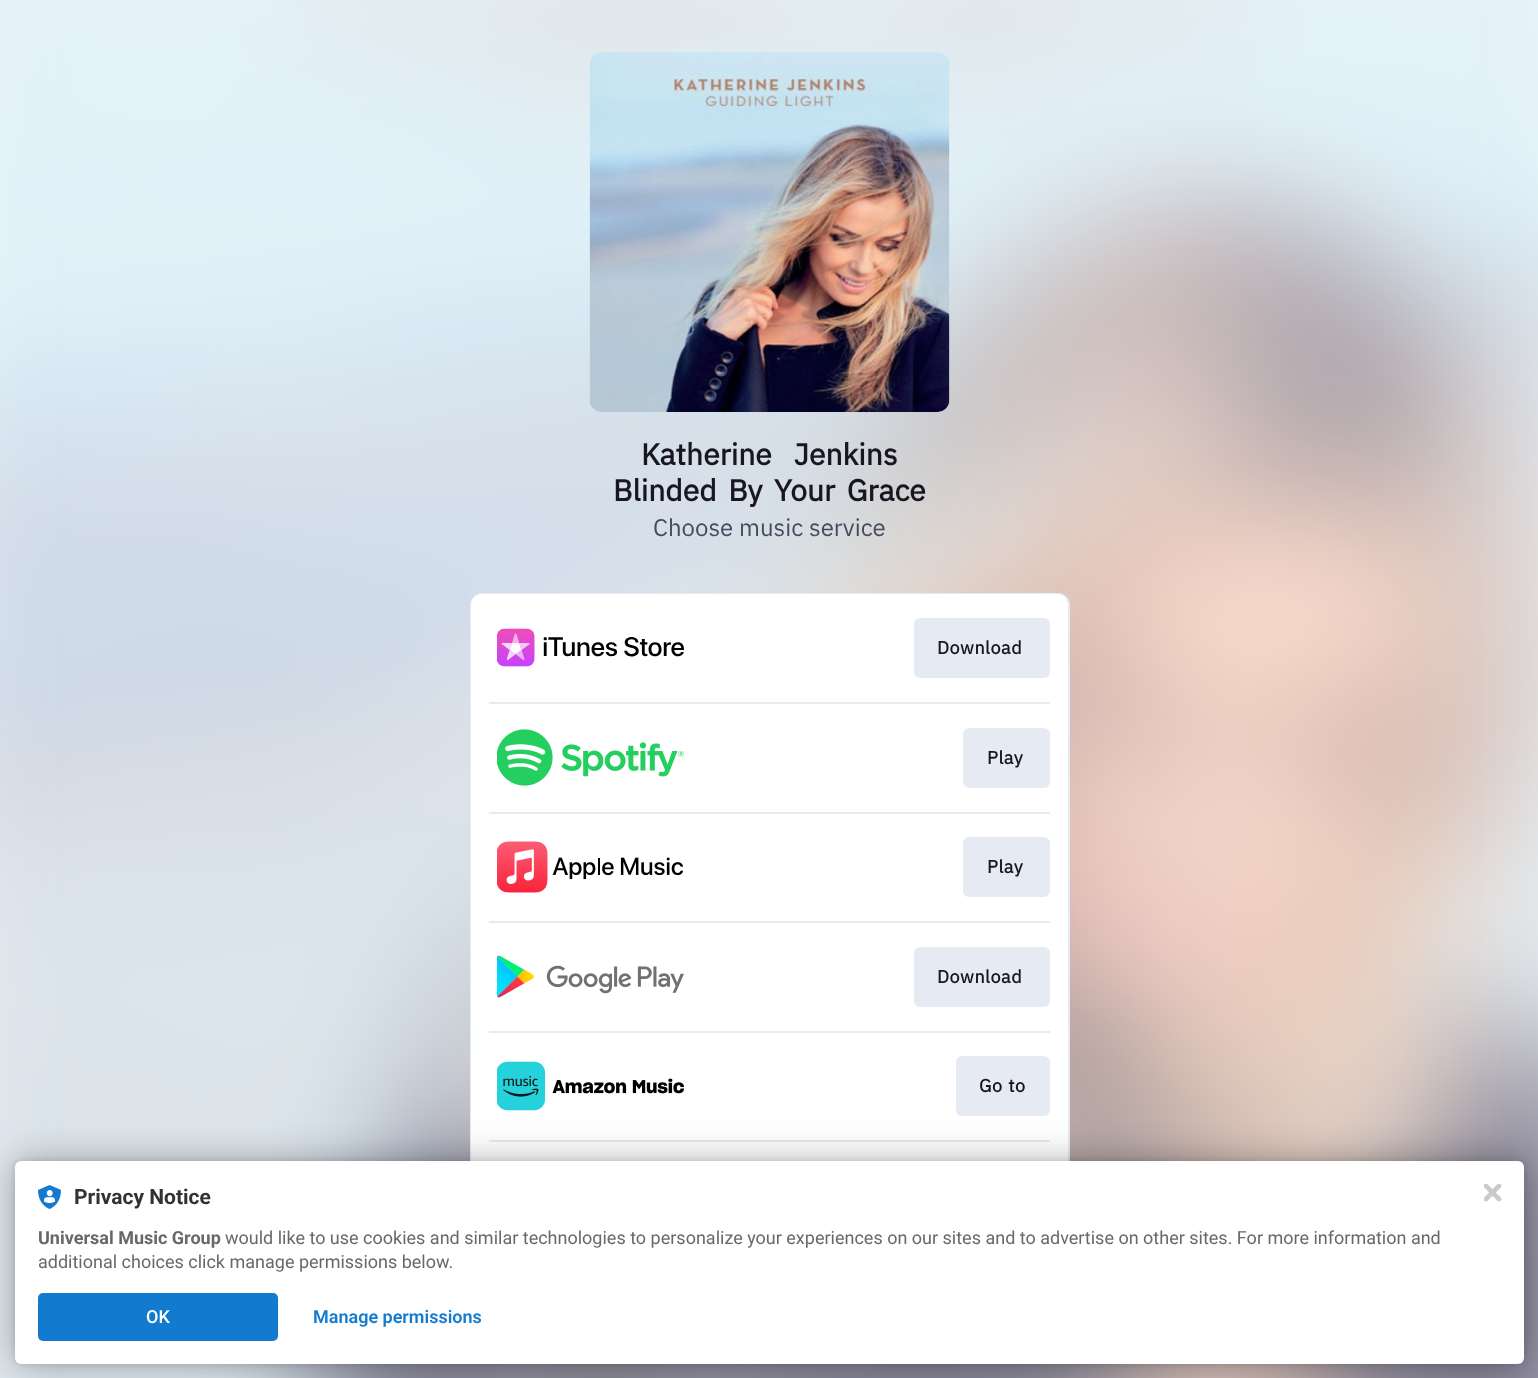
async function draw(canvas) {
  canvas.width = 1538;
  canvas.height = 1378;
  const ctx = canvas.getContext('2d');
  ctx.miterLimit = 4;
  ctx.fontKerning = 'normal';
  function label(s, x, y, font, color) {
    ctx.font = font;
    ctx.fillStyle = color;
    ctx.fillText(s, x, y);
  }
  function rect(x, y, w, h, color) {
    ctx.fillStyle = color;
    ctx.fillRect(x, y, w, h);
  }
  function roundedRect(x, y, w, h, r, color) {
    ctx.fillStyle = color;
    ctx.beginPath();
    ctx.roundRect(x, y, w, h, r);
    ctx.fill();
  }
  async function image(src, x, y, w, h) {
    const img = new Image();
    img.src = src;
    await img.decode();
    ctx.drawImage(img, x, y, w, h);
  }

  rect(0, 0, 1538, 1378, '#fff');
  await image('assets/img1.png', 0, 0, 1538, 1378);
  await image('assets/img2.png', 589, 52, 361, 360);
  ctx.wordSpacing = '15px';
  label('Katherine Jenkins', 641, 465, 'bold 30px IBM Plex Sans', '#181721');
  ctx.wordSpacing = '4.5px';
  label('Blinded By Your Grace', 613, 501, 'bold 30px IBM Plex Sans', '#181721');
  ctx.wordSpacing = '0px';
  label('Choose music service', 653, 536, '24px IBM Plex Sans', '#454b5f');
  ctx.beginPath();
  ctx.roundRect(471, 594, 598, 656, 11);
  ctx.strokeStyle = '#e6eaf2';
  ctx.lineWidth = 2;
  ctx.stroke();
  roundedRect(471, 594, 597, 656, 11, '#fff');
  await image('assets/img3.png', 497, 628, 187, 39);
  roundedRect(914, 618, 136, 60, 6, '#e6eaf2');
  ctx.letterSpacing = '0.5px';
  label('Download', 937, 654, 'bold 18px IBM Plex Sans', '#181721');
  rect(489, 702, 561, 2, '#e6eaf2');
  await image('assets/img4.png', 497, 729, 187, 57);
  roundedRect(963, 728, 87, 60, 6, '#e6eaf2');
  label('Play', 987, 764, 'bold 18px IBM Plex Sans', '#181721');
  rect(489, 812, 561, 2, '#e6eaf2');
  await image('assets/img5.png', 497, 841, 186, 52);
  roundedRect(963, 837, 87, 60, 6, '#e6eaf2');
  label('Play', 987, 873, 'bold 18px IBM Plex Sans', '#181721');
  rect(489, 921, 561, 2, '#e6eaf2');
  await image('assets/img6.png', 497, 955, 187, 43);
  roundedRect(914, 947, 136, 60, 6, '#e6eaf2');
  label('Download', 937, 983, 'bold 18px IBM Plex Sans', '#181721');
  rect(489, 1031, 561, 2, '#e6eaf2');
  await image('assets/img7.png', 497, 1061, 187, 50);
  roundedRect(956, 1056, 94, 60, 6, '#e6eaf2');
  ctx.wordSpacing = '1px';
  label('Go to', 979, 1092, 'bold 18px IBM Plex Sans', '#181721');
  rect(489, 1140, 561, 2, '#e6eaf2');
  ctx.fillStyle = '#0000001f';
  ctx.filter = 'blur(3px)';
  ctx.beginPath();
  ctx.roundRect(15, 1161, 1509, 203, 6);
  ctx.fill();
  ctx.filter = 'none';
  ctx.fillStyle = '#0000004d';
  ctx.filter = 'blur(18px)';
  ctx.beginPath();
  ctx.roundRect(15, 1161, 1509, 203, 6);
  ctx.fill();
  ctx.filter = 'none';
  roundedRect(15, 1161, 1509, 203, 6, '#fff');
  await image('assets/img8.png', 38, 1185, 23, 24);
  ctx.letterSpacing = '0px';
  ctx.wordSpacing = '0px';
  label('Privacy Notice', 74, 1204, 'bold 21px Roboto', '#323232');
  label('Universal Music Group', 38, 1244, 'bold 18px Roboto', '#686868');
  label('would like to use cookies and similar technologies to personalize your experiences on our sites and to advertise on other sites. For more information and', 225, 1244, '18px Roboto', '#686868');
  label('additional choices click manage permissions below.', 38, 1268, '18px Roboto', '#686868');
  roundedRect(38, 1293, 240, 48, 5, '#137bcf');
  label('OK', 146, 1323, '500 18px Roboto', '#fff');
  label('Manage permissions', 313, 1323, '600 18px Roboto', '#137bcf');
  await image('assets/img9.png', 1484, 1184, 18, 18);
}

draw(document.querySelector('canvas'));
